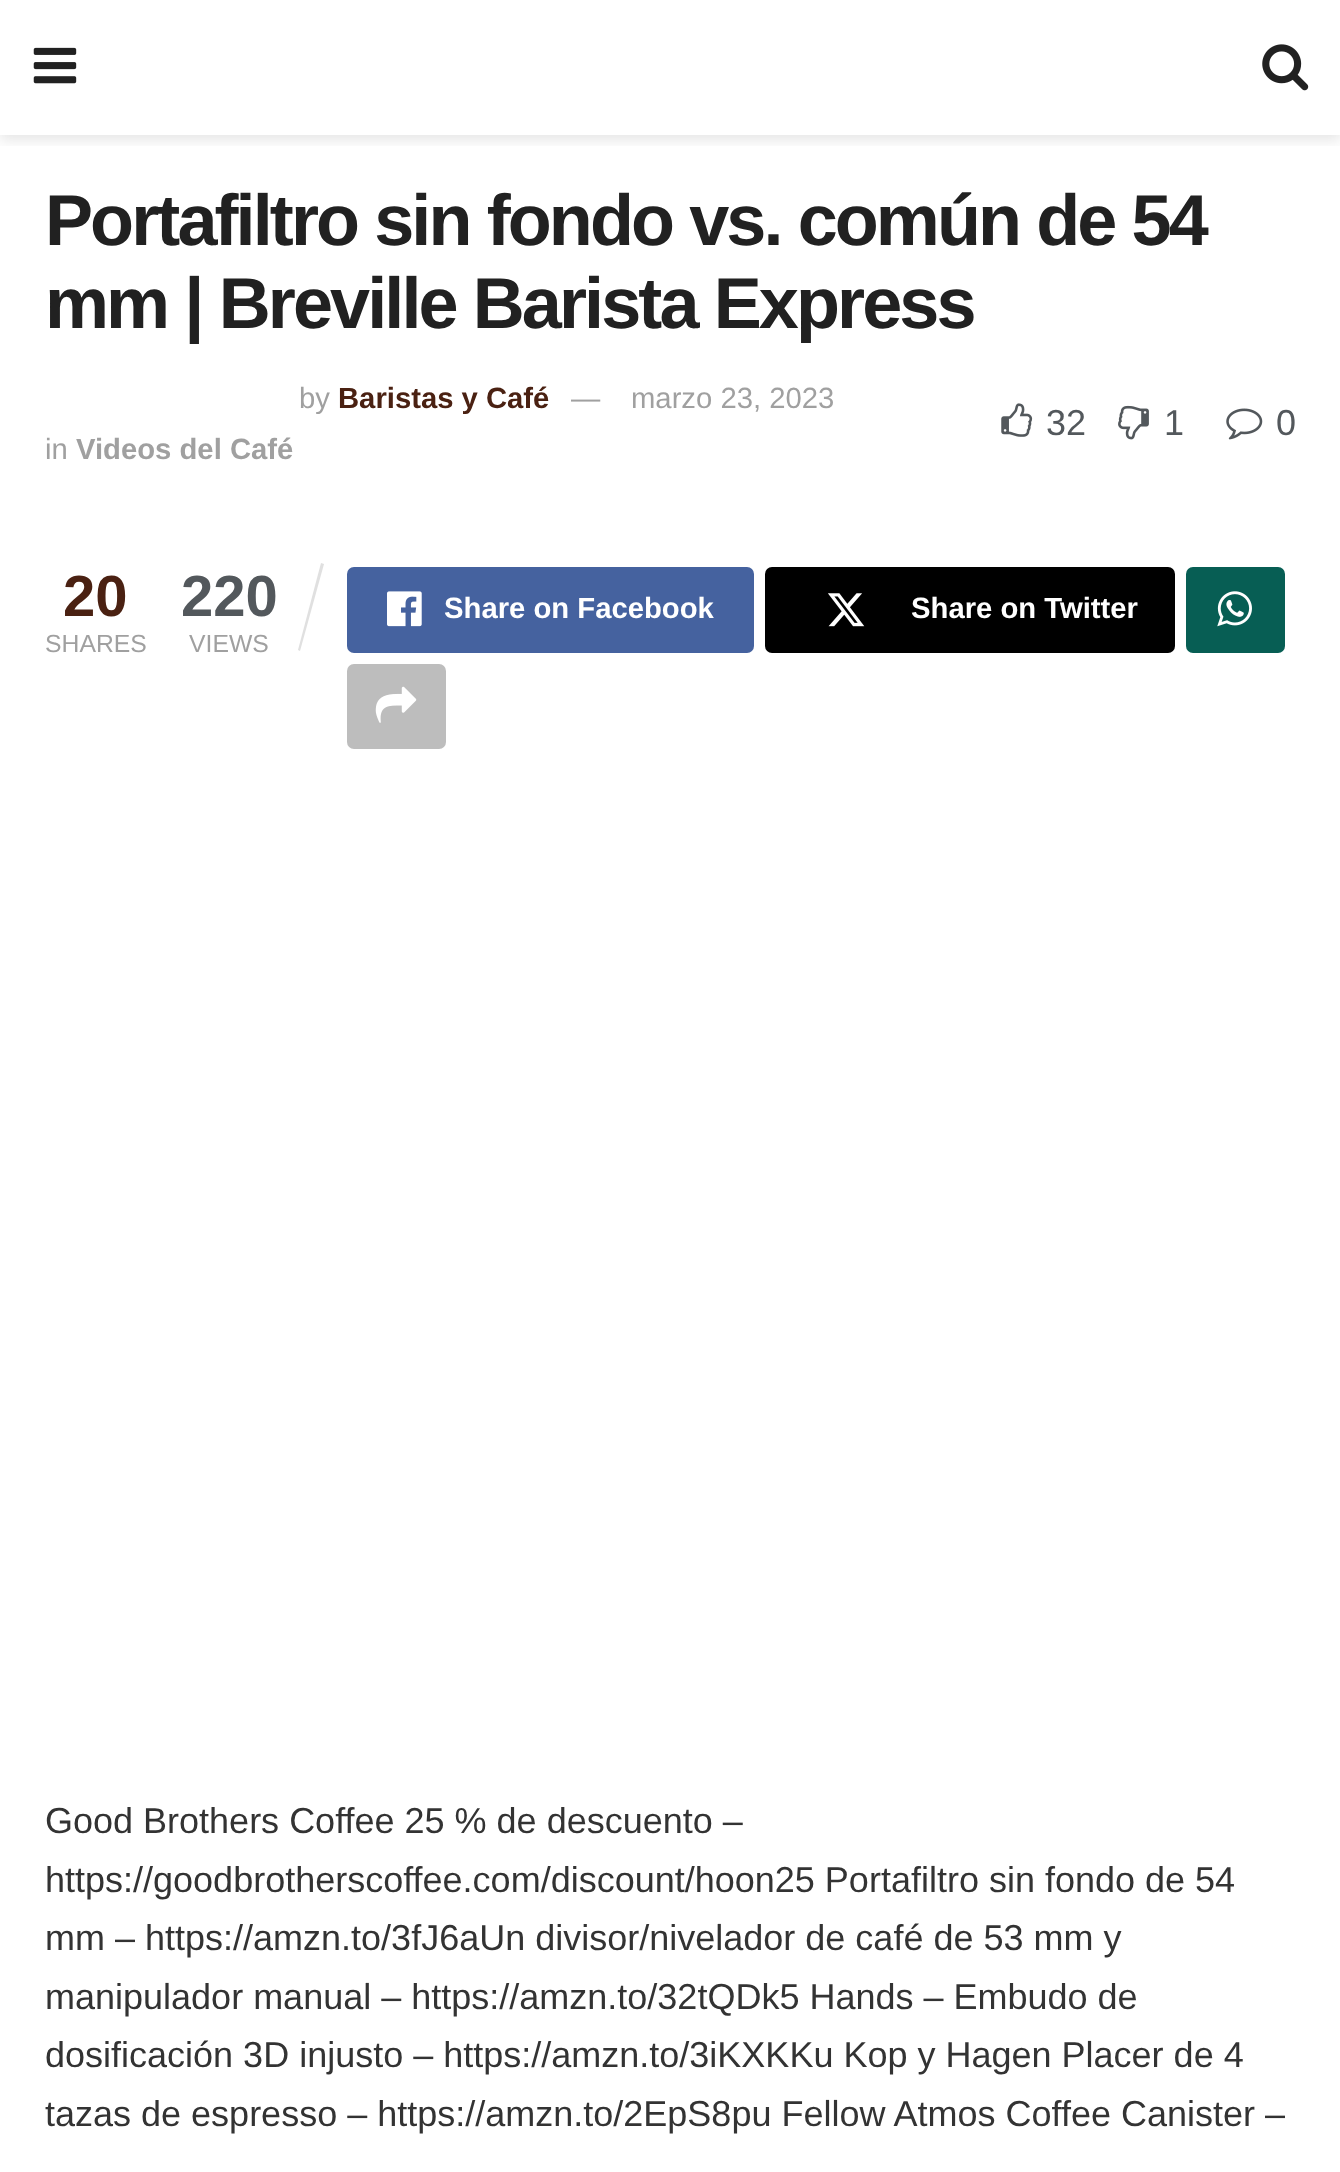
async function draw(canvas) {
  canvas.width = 1340;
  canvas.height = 2172;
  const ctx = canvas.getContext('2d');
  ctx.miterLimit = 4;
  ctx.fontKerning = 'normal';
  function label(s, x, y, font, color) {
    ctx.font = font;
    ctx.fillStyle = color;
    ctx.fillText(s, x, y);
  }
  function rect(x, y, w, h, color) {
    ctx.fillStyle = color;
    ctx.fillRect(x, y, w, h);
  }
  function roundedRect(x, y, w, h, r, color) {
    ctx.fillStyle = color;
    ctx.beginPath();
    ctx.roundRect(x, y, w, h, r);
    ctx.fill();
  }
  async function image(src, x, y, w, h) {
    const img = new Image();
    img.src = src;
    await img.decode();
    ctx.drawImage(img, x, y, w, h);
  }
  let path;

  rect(0, 0, 1340, 2172, '#fff');
  ctx.save();
  ctx.beginPath();
  ctx.rect(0, 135, 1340, 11);
  ctx.clip();
  ctx.fillStyle = '#0000001a';
  ctx.filter = 'blur(7px)';
  ctx.beginPath();
  ctx.rect(0, 5, 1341, 135);
  ctx.fill();
  ctx.filter = 'none';
  ctx.restore();
  await image('assets/img1.png', 33, 47, 44, 37);
  await image('assets/img2.png', 1262, 44, 47, 47);
  ctx.letterSpacing = '-2.9px';
  label('Portafiltro sin fondo vs. común de 54', 45, 245, 'bold 72px Liberation Sans', '#212121');
  label('mm | Breville Barista Express', 45, 328, 'bold 72px Liberation Sans', '#212121');
  ctx.letterSpacing = '0px';
  label('by', 299, 408, '29.25px Liberation Sans', '#a0a0a0');
  label('Baristas y Café', 338, 408, 'bold 29.25px Liberation Sans', '#4a2112');
  label('—', 571, 408, '29.25px Liberation Sans', '#a0a0a0');
  label('marzo 23, 2023', 631, 408, '29.25px Liberation Sans', '#a0a0a0');
  label('in', 45, 459, '29.25px Liberation Sans', '#a0a0a0');
  label('Videos del Café', 76, 459, 'bold 29.25px Liberation Sans', '#a0a0a0');
  await image('assets/img3.png', 1001, 403, 32, 34);
  label('32', 1046, 435, '36px Liberation Sans', '#53585c');
  await image('assets/img4.png', 1118, 405, 31, 35);
  label('1', 1164, 435, '36px Liberation Sans', '#53585c');
  await image('assets/img5.png', 1226, 408, 37, 32);
  label('0', 1276, 435, '36px Liberation Sans', '#53585c');
  label('20', 63, 616, 'bold 58px Liberation Sans', '#4a2112');
  label('SHARES', 45, 652, '24.75px Liberation Sans', '#a0a0a0');
  label('220', 181, 616, 'bold 58px Liberation Sans', '#53585c');
  ctx.fillStyle = '#e0e0e0';
  path = new Path2D('M321 563L324 564L300 651L298 650Z');
  ctx.fill(path);
  label('VIEWS', 189, 652, '24.75px Liberation Sans', '#a0a0a0');
  roundedRect(347, 567, 407, 86, 7, '#45629f');
  await image('assets/img6.png', 387, 591, 35, 36);
  label('Share on Facebook', 444, 618, 'bold 29.25px Liberation Sans', '#fff');
  roundedRect(765, 567, 410, 86, 7, '#000');
  await image('assets/img7.png', 828, 593, 37, 34);
  label('Share on Twitter', 911, 618, 'bold 29.25px Liberation Sans', '#fff');
  roundedRect(1186, 567, 99, 86, 7, '#075e54');
  await image('assets/img8.png', 1217, 591, 35, 36);
  roundedRect(347, 664, 99, 85, 7, '#bdbdbd');
  await image('assets/img9.png', 375, 686, 42, 37);
  label('Good Brothers Coffee 25 % de descuento –', 45, 1833, '36px Liberation Sans', '#333');
  label('https://goodbrotherscoffee.com/discount/hoon25 Portafiltro sin fondo de 54', 45, 1892, '36px Liberation Sans', '#333');
  label('mm – https://amzn.to/3fJ6aUn divisor/nivelador de café de 53 mm y', 45, 1950, '36px Liberation Sans', '#333');
  label('manipulador manual – https://amzn.to/32tQDk5 Hands – Embudo de', 45, 2009, '36px Liberation Sans', '#333');
  label('dosificación 3D injusto – https://amzn.to/3iKXKKu Kop y Hagen Placer de 4', 45, 2067, '36px Liberation Sans', '#333');
  label('tazas de espresso – https://amzn.to/2EpS8pu Fellow Atmos Coffee Canister –', 45, 2126, '36px Liberation Sans', '#333');
}

draw(document.querySelector('canvas'));
